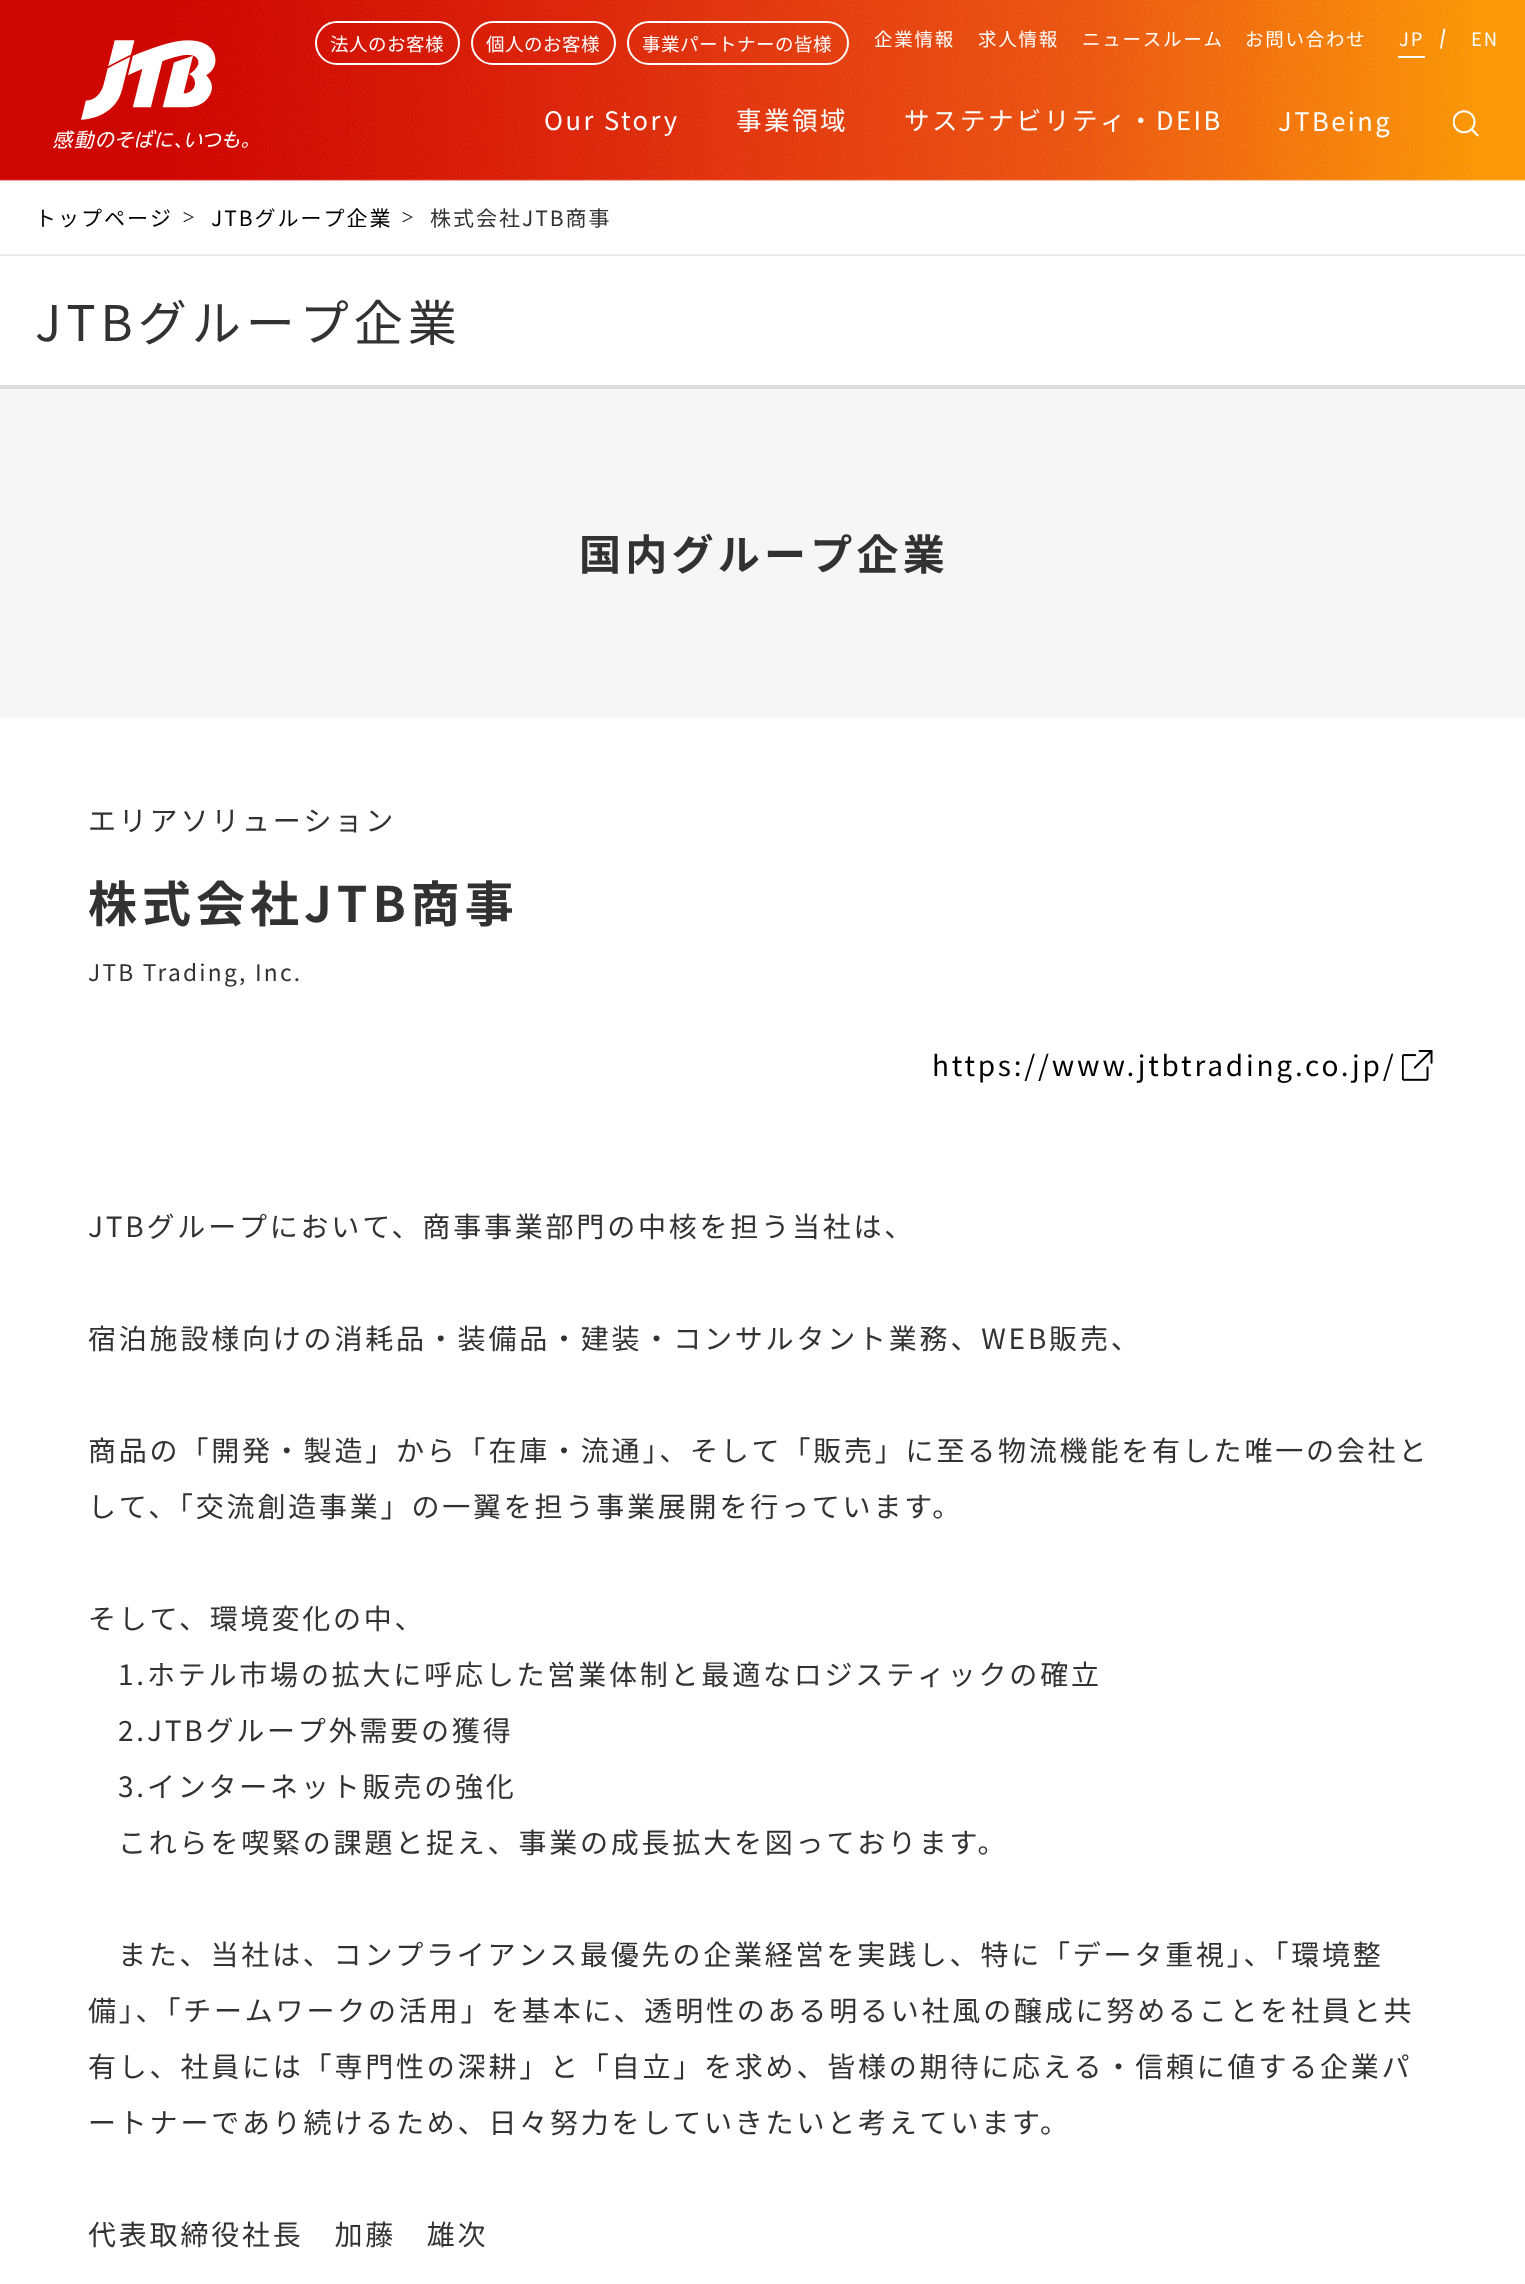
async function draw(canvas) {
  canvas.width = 1525;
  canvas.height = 2284;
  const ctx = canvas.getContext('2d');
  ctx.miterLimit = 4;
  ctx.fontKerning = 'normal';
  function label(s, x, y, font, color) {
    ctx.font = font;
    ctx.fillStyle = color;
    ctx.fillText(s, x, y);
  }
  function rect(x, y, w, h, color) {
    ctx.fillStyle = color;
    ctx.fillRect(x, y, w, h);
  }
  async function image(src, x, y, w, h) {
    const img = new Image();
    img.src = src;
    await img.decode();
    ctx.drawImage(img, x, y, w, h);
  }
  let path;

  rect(0, 0, 1525, 2284, '#fff');
  await image('assets/img1.png', 0, 0, 1525, 181);
  await image('assets/img2.png', 53, 40, 195, 109);
  ctx.beginPath();
  ctx.roundRect(316, 22, 143, 42, 21);
  ctx.strokeStyle = '#fff';
  ctx.lineWidth = 2;
  ctx.stroke();
  ctx.letterSpacing = '0.5px';
  label('法人のお客様', 330, 51, '18.5px Noto Sans JP', '#fff');
  ctx.beginPath();
  ctx.roundRect(472, 22, 143, 42, 21);
  ctx.stroke();
  label('個人のお客様', 486, 51, '18.5px Noto Sans JP', '#fff');
  ctx.beginPath();
  ctx.roundRect(628, 22, 220, 42, 21);
  ctx.stroke();
  label('事業パートナーの皆様', 642, 51, '18.5px Noto Sans JP', '#fff');
  ctx.letterSpacing = '1.75px';
  label('企業情報', 874, 46, '18.5px Noto Sans JP', '#fff');
  label('求人情報', 978, 46, '18.5px Noto Sans JP', '#fff');
  label('ニュースルーム', 1082, 46, '18.5px Noto Sans JP', '#fff');
  label('お問い合わせ', 1245, 46, '18.5px Noto Sans JP', '#fff');
  label('JP', 1399, 46, '18.5px Noto Sans JP', '#fff');
  rect(1398, 56, 27, 2, '#fff');
  path = new Path2D('M1443.5 28.5L1445.5 29L1441.5 49L1440 48.5Z');
  ctx.fill(path);
  label('EN', 1471, 46, '18.5px Noto Sans JP', '#fff');
  ctx.letterSpacing = '2.5px';
  label('Our Story', 544, 130, '25.5px Noto Sans JP', '#fff');
  label('事業領域', 736, 130, '25.5px Noto Sans JP', '#fff');
  label('サステナビリティ・DEIB', 904, 130, '25.5px Noto Sans JP', '#fff');
  label('JTBeing', 1278, 131, '25.5px Noto Sans JP', '#fff');
  await image('assets/img3.png', 1453, 110, 26, 27);
  rect(0, 254, 1525, 2, '#ebebeb');
  ctx.letterSpacing = '2px';
  label('トップページ', 35, 226, '21px Noto Sans JP', '#000');
  label('＞', 182, 222, '13px Noto Sans JP', '#000');
  label('JTBグループ企業', 211, 226, '21px Noto Sans JP', '#000');
  label('＞', 401, 222, '13px Noto Sans JP', '#000');
  label('株式会社JTB商事', 430, 226, '21px Noto Sans JP', '#323232');
  rect(0, 385, 1525, 4, '#dcdcdc');
  ctx.letterSpacing = '5px';
  label('JTBグループ企業', 35, 341, '49px Noto Sans JP', '#323232');
  rect(0, 389, 1525, 329, '#f6f6f6');
  ctx.letterSpacing = '4.25px';
  label('国内グループ企業', 579, 570, 'bold 42px Noto Sans JP', '#323232');
  ctx.letterSpacing = '2.8px';
  label('エリアソリューション', 88, 831, '28px Noto Sans JP', '#323232');
  ctx.letterSpacing = '5px';
  label('株式会社JTB商事', 88, 922, 'bold 49px Noto Sans JP', '#323232');
  ctx.letterSpacing = '2.25px';
  label('JTB Trading, Inc.', 88, 981, '22.75px Noto Sans JP', '#323232');
  ctx.letterSpacing = '2.8px';
  label('https://www.jtbtrading.co.jp/', 932, 1076, '28px Noto Sans JP', '#000');
  await image('assets/img4.png', 1402, 1050, 31, 31);
  label('JTBグループにおいて、商事事業部門の中核を担う当社は、', 88, 1237, '28px Noto Sans JP', '#323232');
  label('宿泊施設様向けの消耗品・装備品・建装・コンサルタント業務、WEB販売、', 88, 1349, '28px Noto Sans JP', '#323232');
  label('商品の「開発・製造」から「在庫・流通」、そして「販売」に至る物流機能を有した唯一の会社と', 88, 1461, '28px Noto Sans JP', '#323232');
  label('して、「交流創造事業」の一翼を担う事業展開を行っています。', 88, 1517, '28px Noto Sans JP', '#323232');
  label('そして、環境変化の中、', 88, 1629, '28px Noto Sans JP', '#323232');
  label('1.ホテル市場の拡大に呼応した営業体制と最適なロジスティックの確立', 118, 1685, '28px Noto Sans JP', '#323232');
  label('2.JTBグループ外需要の獲得', 118, 1741, '28px Noto Sans JP', '#323232');
  label('3.インターネット販売の強化', 118, 1797, '28px Noto Sans JP', '#323232');
  label('これらを喫緊の課題と捉え、事業の成長拡大を図っております。', 118, 1853, '28px Noto Sans JP', '#323232');
  label('また、当社は、コンプライアンス最優先の企業経営を実践し、特に「データ重視」、「環境整', 118, 1965, '28px Noto Sans JP', '#323232');
  label('備」、「チームワークの活用」を基本に、透明性のある明るい社風の醸成に努めることを社員と共', 88, 2021, '28px Noto Sans JP', '#323232');
  label('有し、社員には「専門性の深耕」と「自立」を求め、皆様の期待に応える・信頼に値する企業パ', 88, 2077, '28px Noto Sans JP', '#323232');
  label('ートナーであり続けるため、日々努力をしていきたいと考えています。', 88, 2133, '28px Noto Sans JP', '#323232');
  label('代表取締役社長　加藤　雄次', 88, 2245, '28px Noto Sans JP', '#323232');
}

draw(document.querySelector('canvas'));
